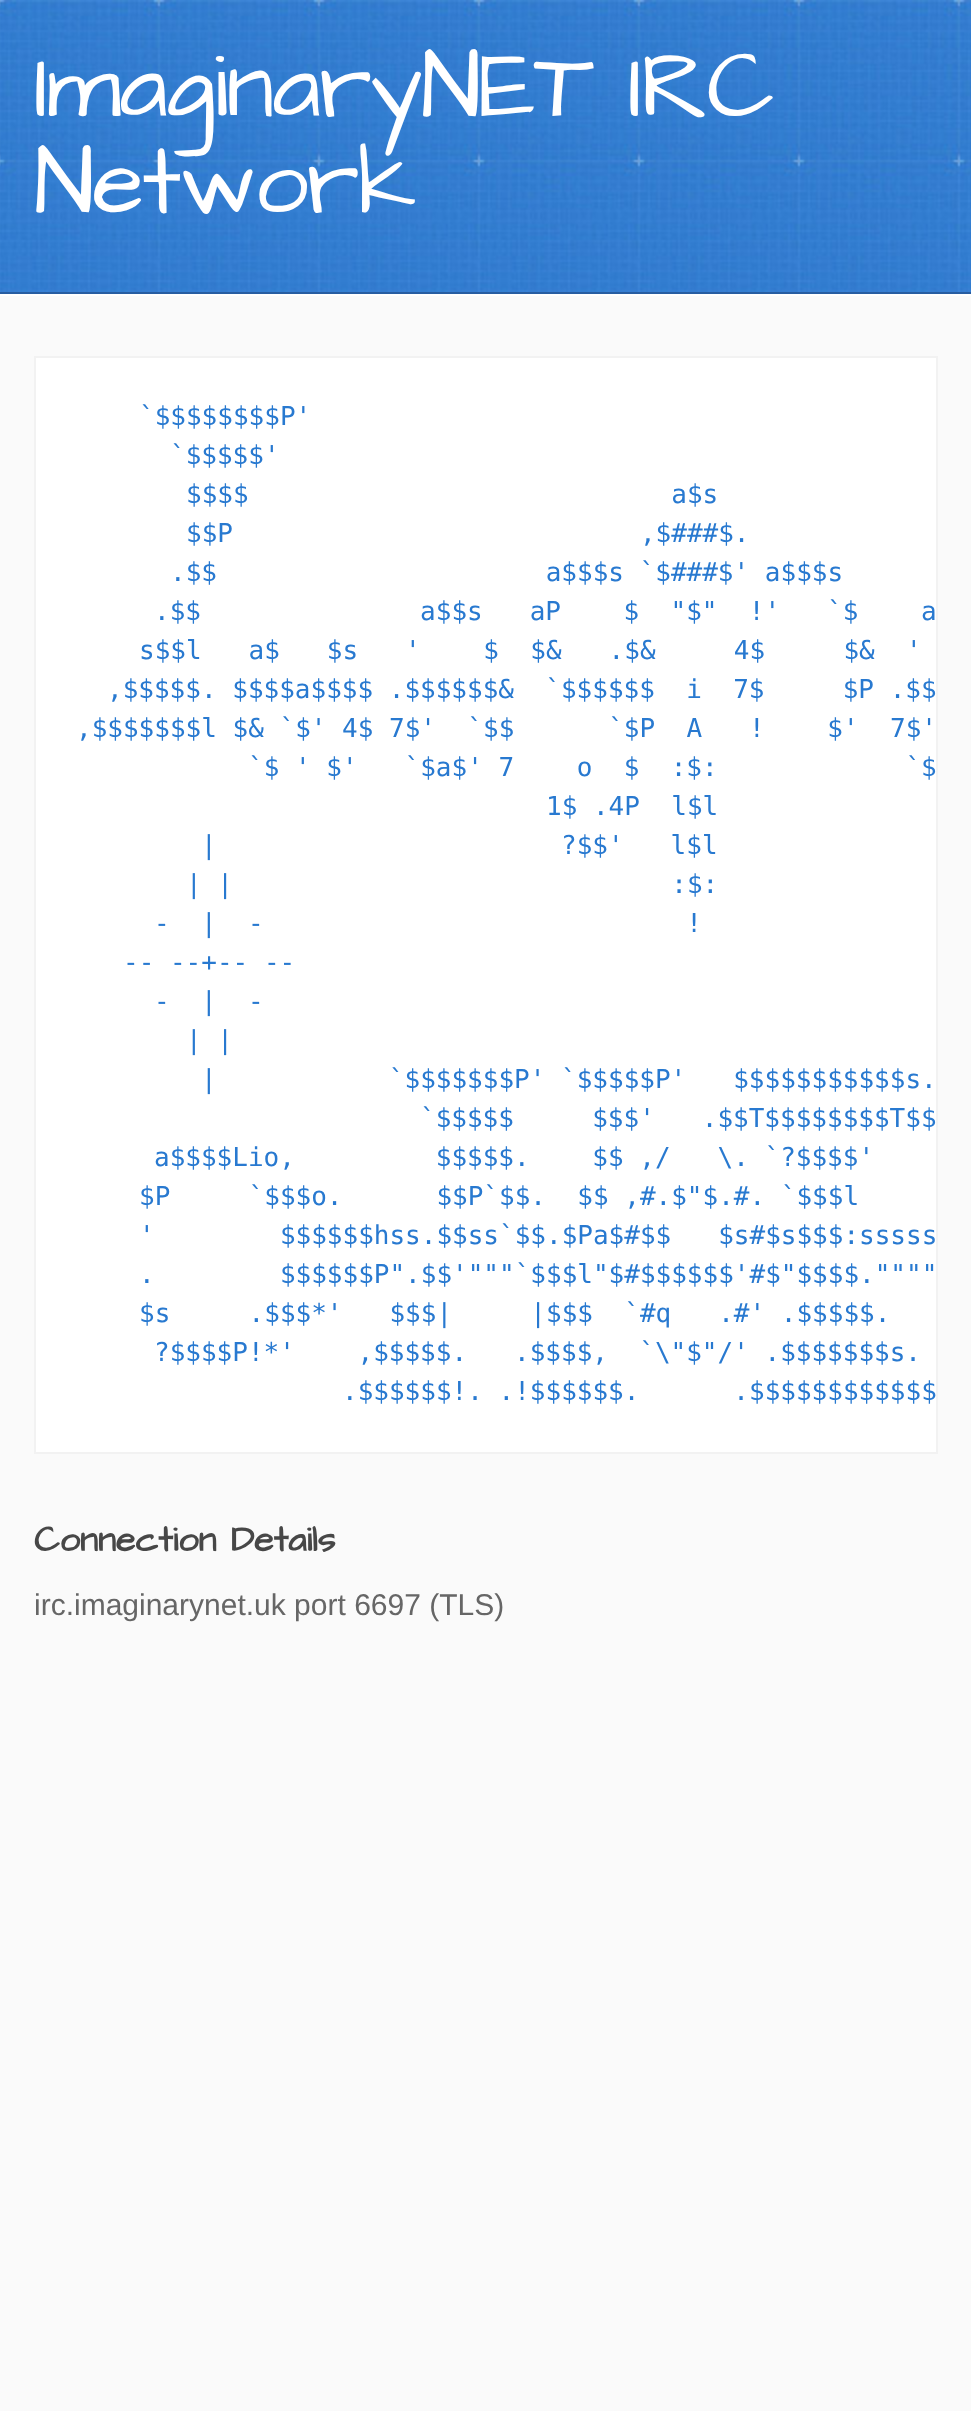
async function draw(canvas) {
  canvas.width = 971;
  canvas.height = 2411;
  const ctx = canvas.getContext('2d');
  ctx.miterLimit = 4;
  ctx.fontKerning = 'normal';
  function label(s, x, y, font, color) {
    ctx.font = font;
    ctx.fillStyle = color;
    ctx.fillText(s, x, y);
  }
  function rect(x, y, w, h, color) {
    ctx.fillStyle = color;
    ctx.fillRect(x, y, w, h);
  }
  async function image(src, x, y, w, h) {
    const img = new Image();
    img.src = src;
    await img.decode();
    ctx.drawImage(img, x, y, w, h);
  }

  rect(0, 0, 971, 2411, '#fafafa');
  await image('assets/img1.png', 0, 0, 971, 292);
  rect(0, 292, 971, 2, '#275da1');
  ctx.letterSpacing = '-2px';
  label('ImaginaryNET IRC', 34, 116, '96px Architects Daughter', '#fff');
  label('Network', 34, 212, '96px Architects Daughter', '#fff');
  rect(0, 294, 971, 2, '#fff');
  ctx.beginPath();
  ctx.rect(35, 357, 902, 1096);
  ctx.fill();
  ctx.strokeStyle = '#f2f2f2';
  ctx.lineWidth = 2;
  ctx.stroke();
  ctx.letterSpacing = '0px';
  label('`$$$$$$$$P\'', 139, 425, '26px DejaVu Sans Mono', '#2879d0');
  label('`$$$$$\'', 170, 464, '26px DejaVu Sans Mono', '#2879d0');
  label('$$$$                           a$s', 186, 503, '26px DejaVu Sans Mono', '#2879d0');
  label('$$P                          ,$###$.', 186, 542, '26px DejaVu Sans Mono', '#2879d0');
  label('.$$                     a$$$s `$###$\' a$$$s', 170, 581, '26px DejaVu Sans Mono', '#2879d0');
  label('.$$              a$$s   aP    $  "$"  !\'   `$    a', 154, 620, '26px DejaVu Sans Mono', '#2879d0');
  label('s$$l   a$   $s   \'    $  $&   .$&     4$     $&  \'', 139, 659, '26px DejaVu Sans Mono', '#2879d0');
  label(',$$$$$. $$$$a$$$$ .$$$$$$&  `$$$$$$  i  7$     $P .$$', 107, 698, '26px DejaVu Sans Mono', '#2879d0');
  label(',$$$$$$$l $& `$\' 4$ 7$\'  `$$      `$P  A   !    $\'  7$\'', 76, 737, '26px DejaVu Sans Mono', '#2879d0');
  label('`$ \' $\'   `$a$\' 7    o  $  :$:            `$', 248, 776, '26px DejaVu Sans Mono', '#2879d0');
  label('1$ .4P  l$l', 546, 815, '26px DejaVu Sans Mono', '#2879d0');
  label('|                      ?$$\'   l$l', 201, 854, '26px DejaVu Sans Mono', '#2879d0');
  label('| |                            :$:', 186, 893, '26px DejaVu Sans Mono', '#2879d0');
  label('-  |  -                           !', 154, 932, '26px DejaVu Sans Mono', '#2879d0');
  label('-- --+-- --', 123, 971, '26px DejaVu Sans Mono', '#2879d0');
  label('-  |  -', 154, 1010, '26px DejaVu Sans Mono', '#2879d0');
  label('| |', 186, 1049, '26px DejaVu Sans Mono', '#2879d0');
  label('|           `$$$$$$$P\' `$$$$$P\'   $$$$$$$$$$$s.', 201, 1088, '26px DejaVu Sans Mono', '#2879d0');
  label('`$$$$$     $$$\'   .$$T$$$$$$$$T$$', 420, 1127, '26px DejaVu Sans Mono', '#2879d0');
  label('a$$$$Lio,         $$$$$.    $$ ,/   \\. `?$$$$\'', 154, 1166, '26px DejaVu Sans Mono', '#2879d0');
  label('$P     `$$$o.      $$P`$$.  $$ ,#.$"$.#. `$$$l', 139, 1205, '26px DejaVu Sans Mono', '#2879d0');
  label('\'        $$$$$$hss.$$ss`$$.$Pa$#$$   $s#$s$$$:sssss', 139, 1244, '26px DejaVu Sans Mono', '#2879d0');
  label('.        $$$$$$P".$$\'"""`$$$l"$#$$$$$$\'#$"$$$$.""""', 139, 1283, '26px DejaVu Sans Mono', '#2879d0');
  label('$s     .$$$*\'   $$$|     |$$$  `#q   .#\' .$$$$$.', 139, 1322, '26px DejaVu Sans Mono', '#2879d0');
  label('?$$$$P!*\'    ,$$$$$.   .$$$$,  `\\"$"/\' .$$$$$$$s.', 154, 1361, '26px DejaVu Sans Mono', '#2879d0');
  label('.$$$$$$!. .!$$$$$$.      .$$$$$$$$$$$$', 342, 1400, '26px DejaVu Sans Mono', '#2879d0');
  label('Connection Details', 34, 1551, 'bold 36px Architects Daughter', '#474747');
  label('irc.imaginarynet.uk port 6697 (TLS)', 34, 1615, '30px Liberation Sans', '#666');
}

draw(document.querySelector('canvas'));
